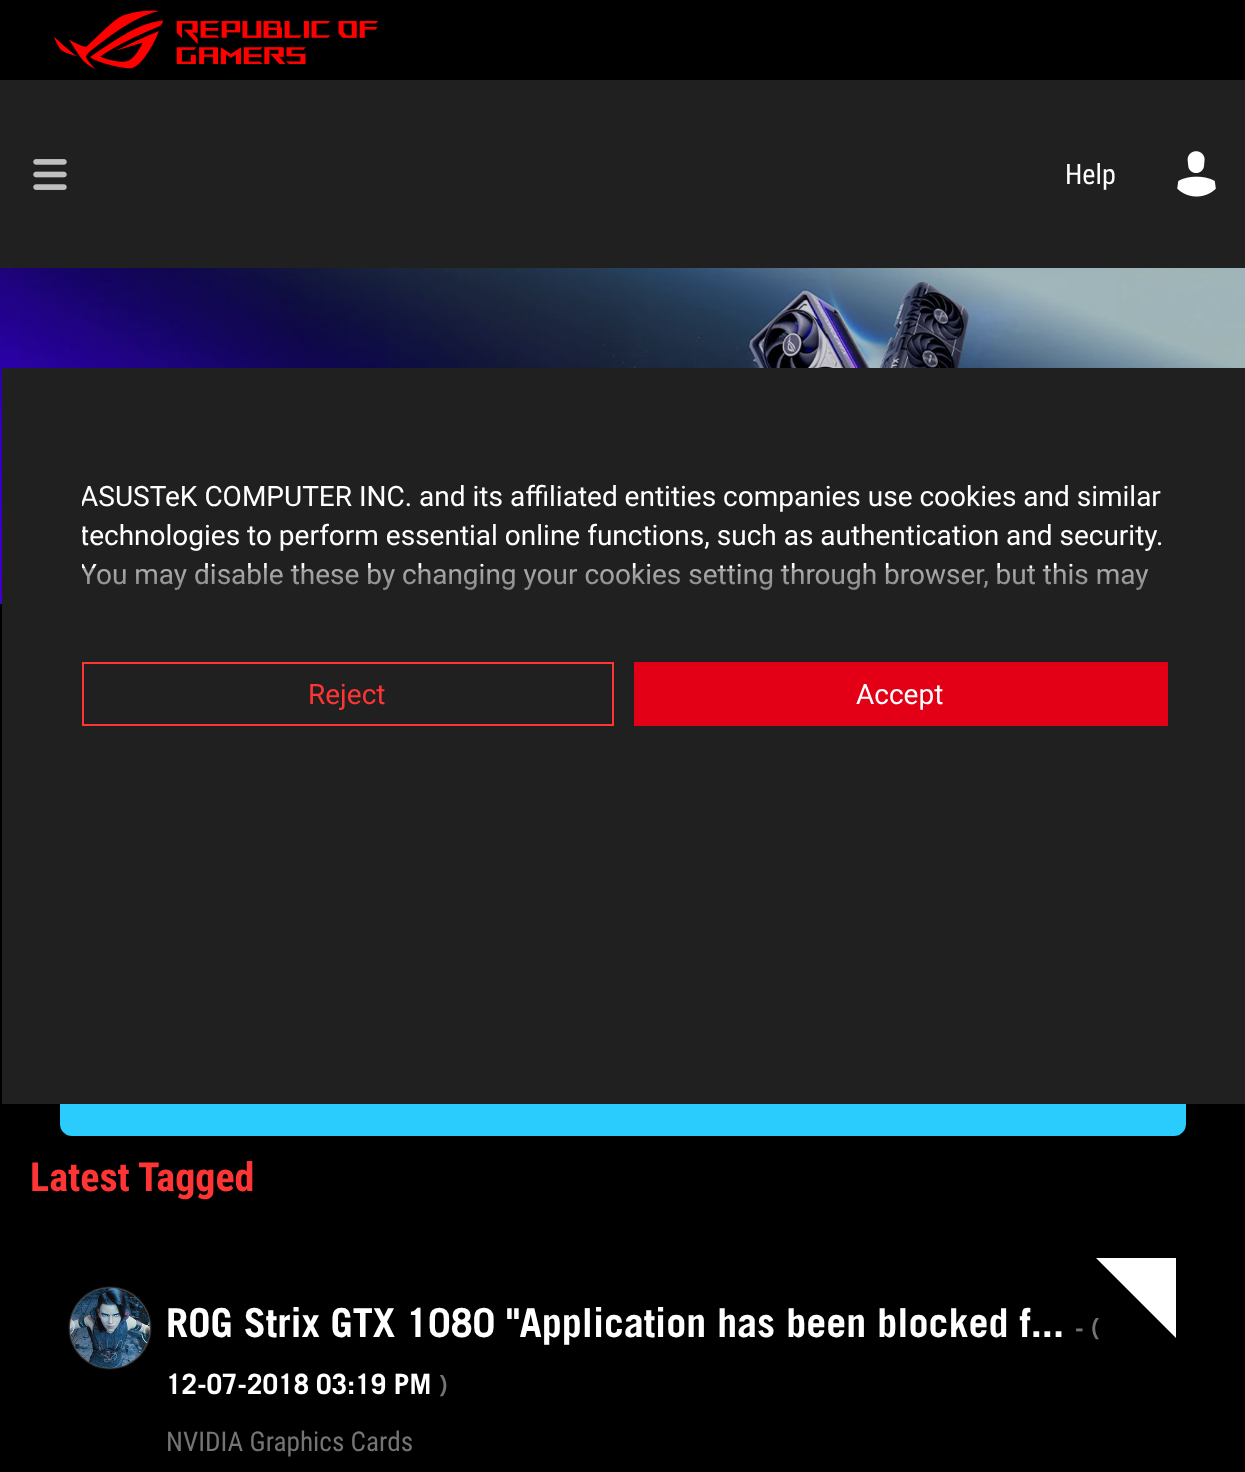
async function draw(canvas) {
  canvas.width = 1245;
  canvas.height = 1472;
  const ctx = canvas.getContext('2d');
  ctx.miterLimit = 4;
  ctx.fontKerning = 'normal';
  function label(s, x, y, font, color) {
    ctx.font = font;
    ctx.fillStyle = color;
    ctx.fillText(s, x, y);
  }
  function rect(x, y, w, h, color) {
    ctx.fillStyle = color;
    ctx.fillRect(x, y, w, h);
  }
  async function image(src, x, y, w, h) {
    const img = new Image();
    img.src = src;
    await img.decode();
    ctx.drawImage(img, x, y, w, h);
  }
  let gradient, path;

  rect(0, 0, 1245, 1472, '#000');
  await image('assets/img1.png', 54, 10, 324, 59);
  rect(0, 80, 1245, 188, '#202020');
  await image('assets/img2.png', 33, 159, 34, 31);
  label('Help', 1065, 184, '28px Roboto Condensed', '#fff');
  await image('assets/img3.png', 1177, 151, 39, 46);
  await image('assets/img4.png', 0, 268, 1245, 336);
  ctx.fillStyle = '#29ccfc';
  ctx.beginPath();
  ctx.roundRect(61, 909, 1124, 226, 11);
  ctx.fill();
  ctx.strokeStyle = '#29ccfc';
  ctx.lineWidth = 2;
  ctx.stroke();
  label('Latest Tagged', 30, 1191, 'bold 40px Roboto Condensed', '#ff3535');
  ctx.fillStyle = '#c4c4c4';
  ctx.filter = 'blur(1px)';
  ctx.beginPath();
  ctx.roundRect(70, 1288, 80, 80, 40);
  ctx.fill();
  ctx.filter = 'none';
  await image('assets/img5.png', 70, 1288, 80, 80);
  label('ROG Strix GTX 1080 "Application has been blocked f...', 166, 1337, 'bold 40px Trade Gothic', '#fff');
  label('- (', 1075, 1337, 'bold 26px Trade Gothic', '#747474');
  label('12-07-2018', 166, 1394, 'bold 28px Trade Gothic', '#fff');
  label('03:19 PM', 316, 1394, 'bold 28px Trade Gothic', '#fff');
  label(')', 439, 1394, 'bold 26px Trade Gothic', '#747474');
  label('NVIDIA Graphics Cards', 166, 1451, '27.25px Roboto Condensed', '#747474');
  ctx.fillStyle = '#fff';
  path = new Path2D('M1096 1258H1176V1338Z');
  ctx.fill(path);
  rect(2, 368, 1243, 736, '#202020');
  ctx.save();
  ctx.beginPath();
  ctx.rect(82, 478, 1086, 164);
  ctx.clip();
  label('ASUSTeK COMPUTER INC. and its affiliated entities companies use cookies and similar', 80, 506, '28px Roboto', '#fff');
  label('technologies to perform essential online functions, such as authentication and security.', 80, 545, '28px Roboto', '#fff');
  label('You may disable these by changing your cookies setting through browser, but this may', 80, 584, '28px Roboto', '#fff');
  ctx.restore();
  gradient = ctx.createLinearGradient(624, 568, 624, 646);
  gradient.addColorStop(0, '#2020205c');
  gradient.addColorStop(1, '#202020');
  ctx.fillStyle = gradient;
  ctx.fillRect(82, 568, 1066, 22);
  ctx.strokeStyle = '#ff3535';
  ctx.strokeRect(83, 663, 530, 62);
  label('Reject', 308, 704, '28px Roboto', '#ff3535');
  rect(634, 662, 534, 64, '#e30017');
  label('Accept', 856, 704, '28px Roboto', '#fff');
}

draw(document.querySelector('canvas'));
